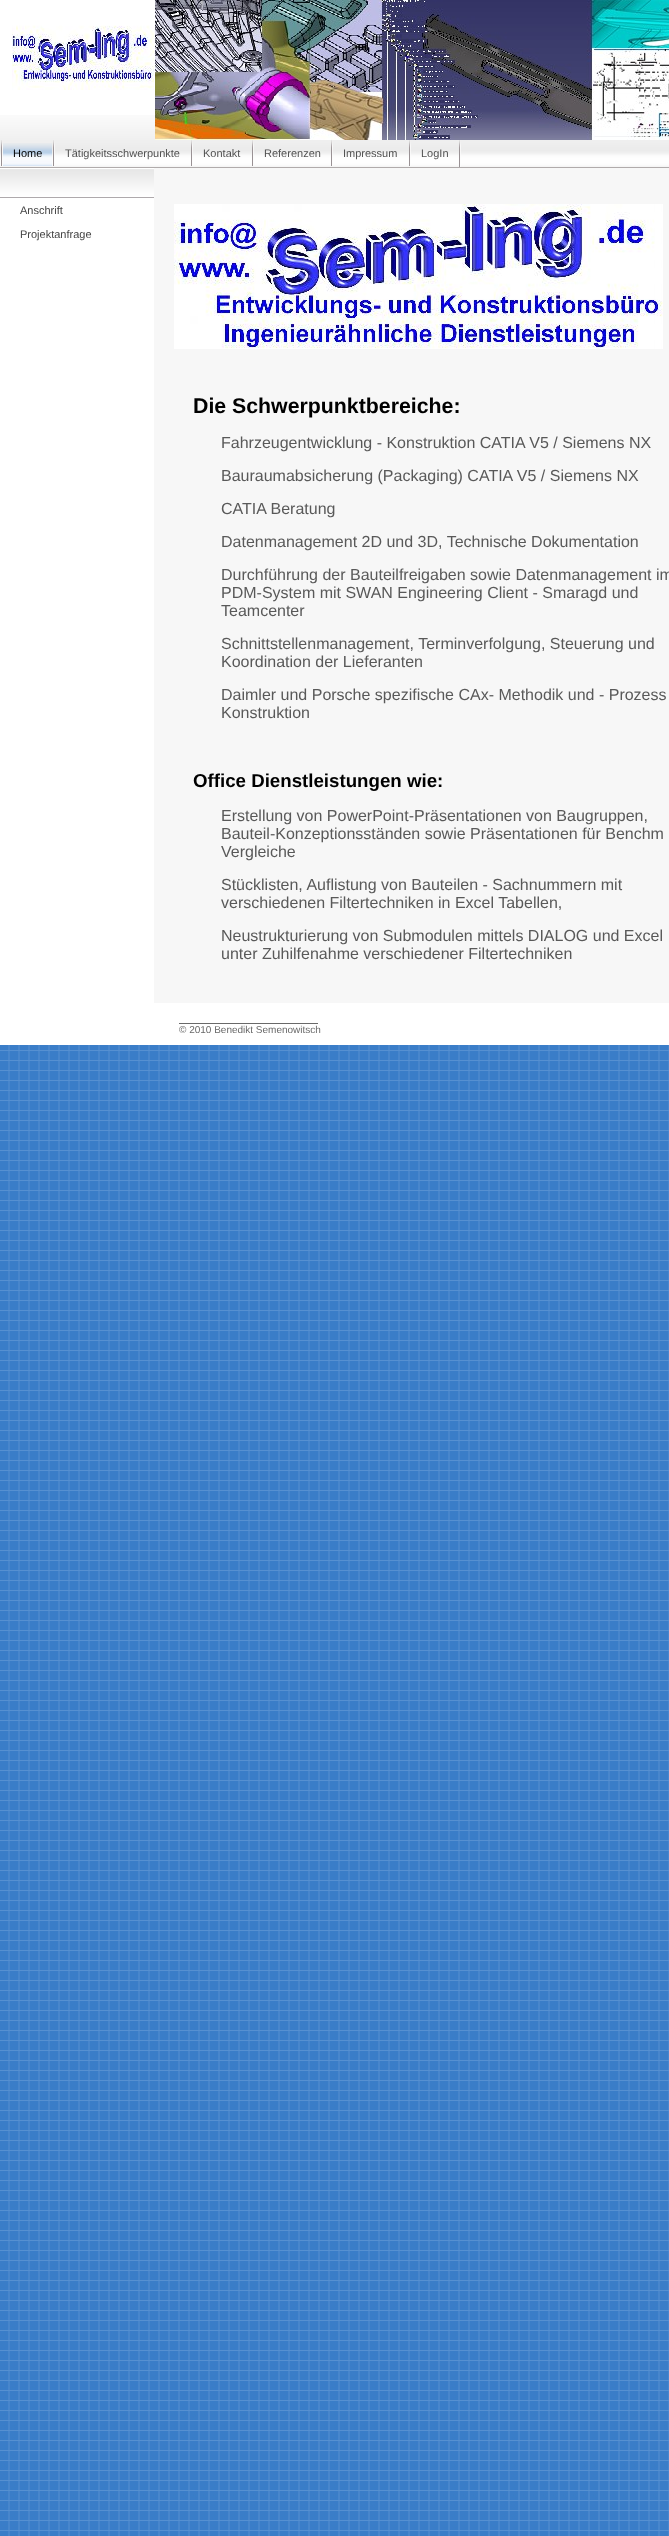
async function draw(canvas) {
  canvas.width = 669;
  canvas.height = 2536;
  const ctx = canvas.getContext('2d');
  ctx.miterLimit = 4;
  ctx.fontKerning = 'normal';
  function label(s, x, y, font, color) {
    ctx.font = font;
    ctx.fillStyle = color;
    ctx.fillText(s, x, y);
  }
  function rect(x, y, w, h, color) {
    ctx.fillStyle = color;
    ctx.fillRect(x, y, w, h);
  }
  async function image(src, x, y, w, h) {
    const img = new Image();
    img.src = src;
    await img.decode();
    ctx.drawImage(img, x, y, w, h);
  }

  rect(0, 0, 669, 2536, '#fff');
  await image('assets/img1.png', 0, 1045, 669, 1491);
  await image('assets/img2.png', 0, 115, 155, 25);
  await image('assets/img3.png', 12, 25, 142, 65);
  await image('assets/img4.png', 155, 0, 514, 140);
  await image('assets/img5.png', 0, 140, 669, 28);
  await image('assets/img6.png', 459, 140, 2, 27);
  await image('assets/img7.png', 1, 140, 2, 26);
  await image('assets/img8.png', 3, 143, 49, 23);
  label('Home', 13, 157, '11px Liberation Sans', '#000');
  await image('assets/img7.png', 53, 140, 2, 26);
  label('Tätigkeitsschwerpunkte', 65, 157, '11px Liberation Sans', '#515151');
  await image('assets/img7.png', 191, 140, 2, 26);
  label('Kontakt', 203, 157, '11px Liberation Sans', '#515151');
  await image('assets/img7.png', 252, 140, 2, 26);
  label('Referenzen', 264, 157, '11px Liberation Sans', '#515151');
  await image('assets/img7.png', 331, 140, 2, 26);
  label('Impressum', 343, 157, '11px Liberation Sans', '#515151');
  await image('assets/img7.png', 409, 140, 2, 26);
  label('LogIn', 421, 157, '11px Liberation Sans', '#515151');
  await image('assets/img9.png', 0, 169, 154, 29);
  label('Anschrift', 20, 214, '11px Liberation Sans', '#444');
  label('Projektanfrage', 20, 238, '11px Liberation Sans', '#444');
  rect(154, 168, 515, 835, '#f7f7f7');
  await image('assets/img10.png', 174, 204, 489, 145);
  label('Die Schwerpunktbereiche:', 193, 413, 'bold 21.3px Liberation Sans', '#000');
  label('Fahrzeugentwicklung - Konstruktion CATIA V5 / Siemens NX', 221, 448, '16px Liberation Sans', '#595959');
  label('Bauraumabsicherung (Packaging) CATIA V5 / Siemens NX', 221, 481, '16px Liberation Sans', '#595959');
  label('CATIA Beratung', 221, 514, '16px Liberation Sans', '#595959');
  label('Datenmanagement 2D und 3D, Technische Dokumentation', 221, 547, '16px Liberation Sans', '#595959');
  label('Durchführung der Bauteilfreigaben sowie Datenmanagement im', 221, 580, '16px Liberation Sans', '#595959');
  label('PDM-System mit SWAN Engineering Client - Smaragd und', 221, 598, '16px Liberation Sans', '#595959');
  label('Teamcenter', 221, 616, '16px Liberation Sans', '#595959');
  label('Schnittstellenmanagement, Terminverfolgung, Steuerung und', 221, 649, '16px Liberation Sans', '#595959');
  label('Koordination der Lieferanten', 221, 667, '16px Liberation Sans', '#595959');
  label('Daimler und Porsche spezifische CAx- Methodik und - Prozess', 221, 700, '16px Liberation Sans', '#595959');
  label('Konstruktion', 221, 718, '16px Liberation Sans', '#595959');
  label('Office Dienstleistungen wie:', 193, 787, 'bold 18.7px Liberation Sans', '#000');
  label('Erstellung von PowerPoint-Präsentationen von Baugruppen,', 221, 821, '16px Liberation Sans', '#595959');
  label('Bauteil-Konzeptionsständen sowie Präsentationen für Benchm', 221, 839, '16px Liberation Sans', '#595959');
  label('Vergleiche', 221, 857, '16px Liberation Sans', '#595959');
  label('Stücklisten, Auflistung von Bauteilen - Sachnummern mit', 221, 890, '16px Liberation Sans', '#595959');
  label('verschiedenen Filtertechniken in Excel Tabellen,', 221, 908, '16px Liberation Sans', '#595959');
  label('Neustrukturierung von Submodulen mittels DIALOG und Excel', 221, 941, '16px Liberation Sans', '#595959');
  label('unter Zuhilfenahme verschiedener Filtertechniken', 221, 959, '16px Liberation Sans', '#595959');
  rect(179, 1023, 139, 1, '#696969');
  label('© 2010 Benedikt Semenowitsch', 179, 1033, '10px Liberation Sans', '#696969');
}

draw(document.querySelector('canvas'));
